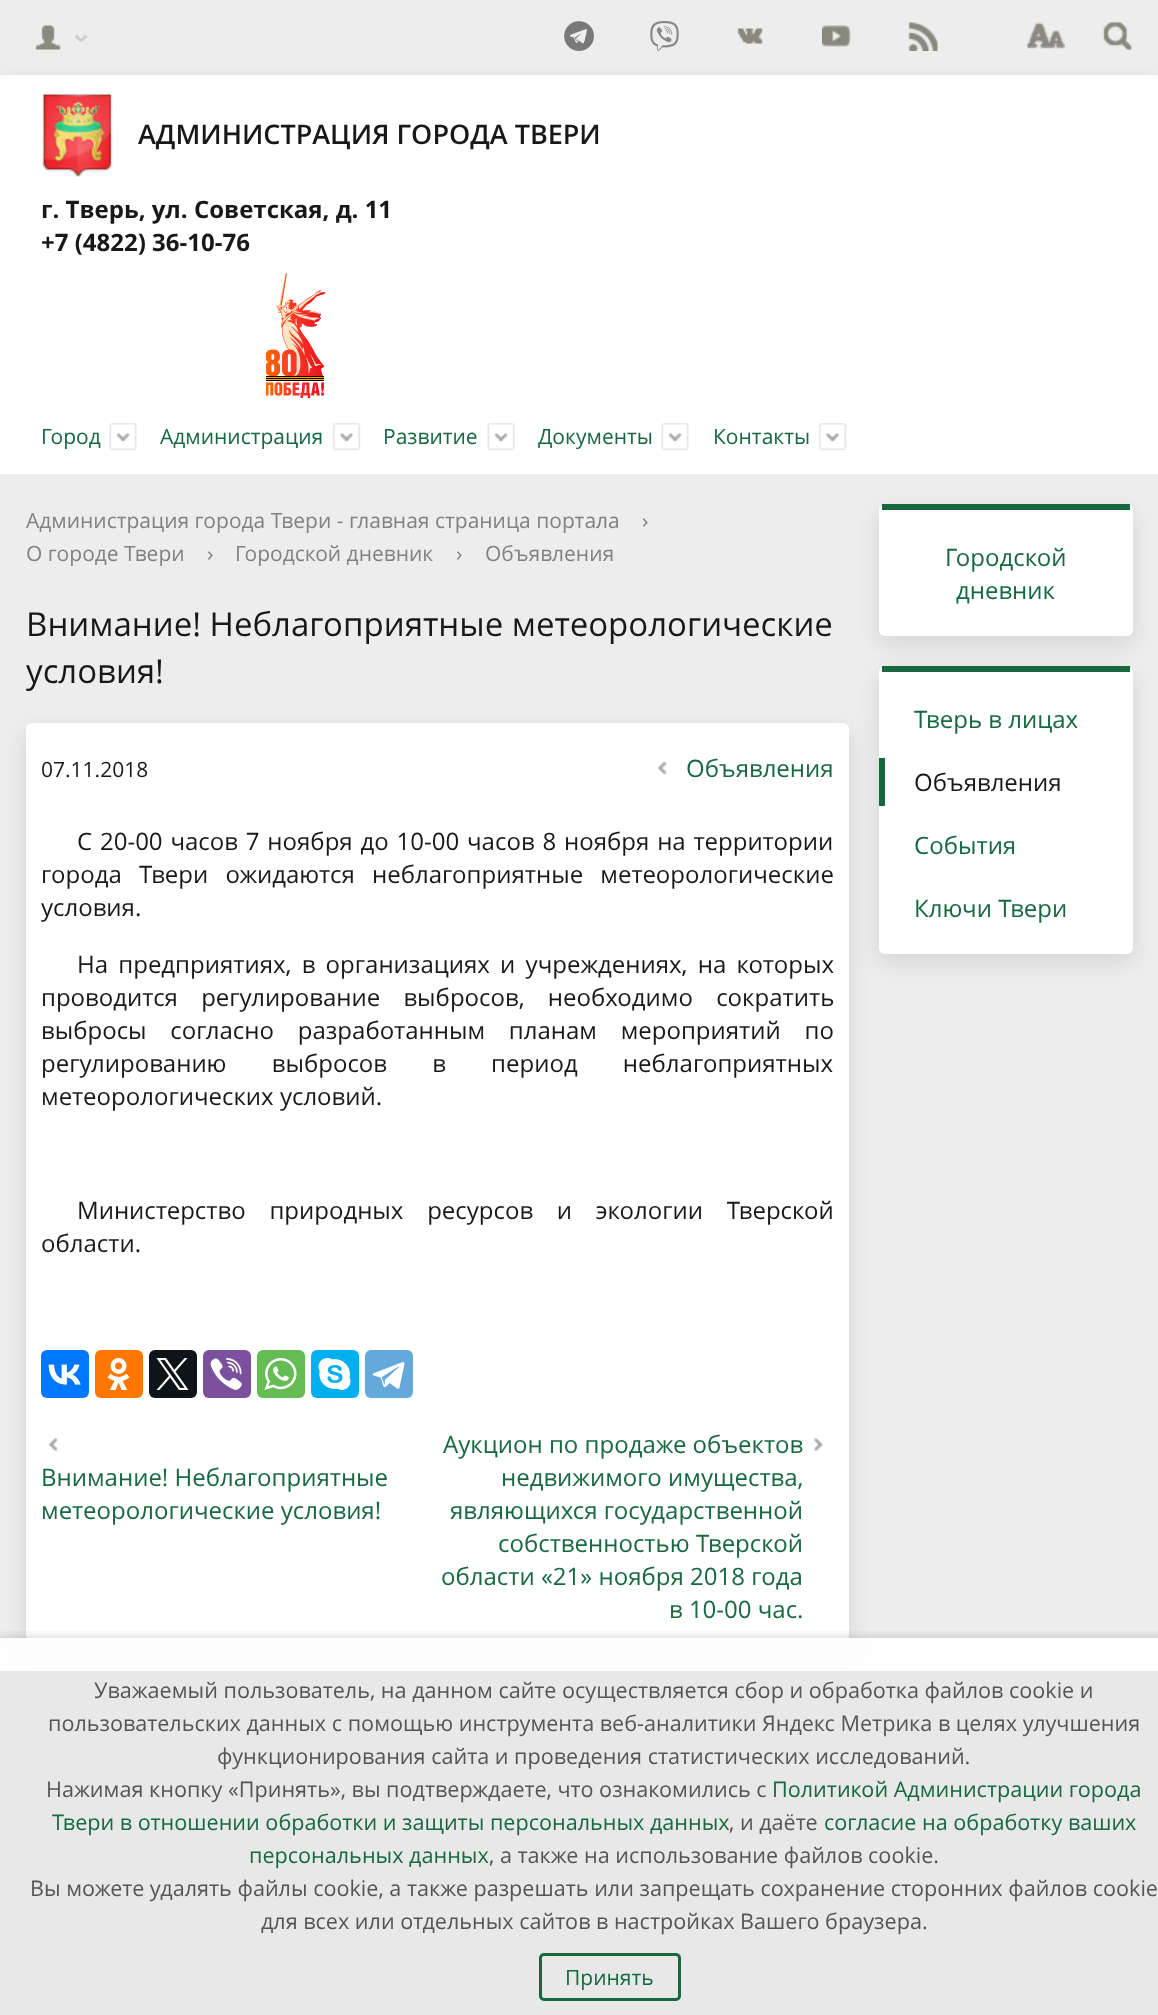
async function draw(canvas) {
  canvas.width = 1158;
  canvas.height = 2015;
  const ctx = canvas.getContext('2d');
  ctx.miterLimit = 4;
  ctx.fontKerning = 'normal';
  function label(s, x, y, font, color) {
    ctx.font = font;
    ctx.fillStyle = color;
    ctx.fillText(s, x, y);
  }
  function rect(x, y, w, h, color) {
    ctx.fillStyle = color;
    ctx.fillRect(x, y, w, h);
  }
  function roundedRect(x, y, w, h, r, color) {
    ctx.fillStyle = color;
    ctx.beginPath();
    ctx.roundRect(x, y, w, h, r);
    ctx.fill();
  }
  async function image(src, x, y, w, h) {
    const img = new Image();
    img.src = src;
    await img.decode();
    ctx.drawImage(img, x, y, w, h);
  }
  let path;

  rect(0, 0, 1158, 2015, '#ededed');
  ctx.fillStyle = '#0000001a';
  ctx.filter = 'blur(11px)';
  ctx.beginPath();
  ctx.rect(0, 83, 1158, 324);
  ctx.fill();
  ctx.filter = 'none';
  rect(0, 75, 1158, 399, '#fff');
  await image('assets/img1.png', 42, 93, 71, 84);
  label('АДМИНИСТРАЦИЯ ГОРОДА ТВЕРИ', 138, 144, '600 27px Open Sans', '#181818');
  label('г. Тверь, ул. Советская, д. 11', 41, 218, 'bold 24px Open Sans', '#181818');
  label('+7 (4822) 36-10-76', 41, 251, 'bold 24px Open Sans', '#181818');
  await image('assets/img2.png', 266, 273, 60, 125);
  label('Город', 41, 444, '21px Open Sans', '#16683f');
  await image('assets/img3.png', 109, 423, 28, 28);
  label('Администрация', 160, 444, '21px Open Sans', '#16683f');
  await image('assets/img4.png', 333, 423, 28, 28);
  label('Развитие', 383, 444, '21px Open Sans', '#16683f');
  await image('assets/img5.png', 487, 423, 28, 28);
  label('Документы', 538, 444, '21px Open Sans', '#16683f');
  await image('assets/img3.png', 661, 423, 28, 28);
  label('Контакты', 713, 444, '21px Open Sans', '#16683f');
  await image('assets/img4.png', 819, 423, 28, 28);
  await image('assets/img6.png', 35, 25, 26, 25);
  ctx.fillStyle = '#ccc';
  path = new Path2D('M80 40L85 34.5L87.5 36.5L82 42Z');
  ctx.fill(path);
  path = new Path2D('M74.5 36.5L77 34.5L82 40L80 42Z');
  ctx.fill(path);
  await image('assets/img7.png', 1027, 22, 38, 27);
  await image('assets/img8.png', 1102, 21, 31, 30);
  await image('assets/img9.png', 564, 21, 30, 30);
  await image('assets/img10.png', 650, 21, 29, 30);
  await image('assets/img11.png', 737, 28, 26, 16);
  await image('assets/img12.png', 822, 25, 29, 22);
  await image('assets/img13.png', 908, 22, 30, 29);
  rect(0, 1671, 1158, 344, '#181818');
  ctx.fillStyle = '#0000001a';
  ctx.filter = 'blur(11px)';
  ctx.beginPath();
  ctx.roundRect(26, 731, 823, 918, 6);
  ctx.fill();
  ctx.filter = 'none';
  roundedRect(26, 723, 823, 918, 6, '#fff');
  ctx.save();
  ctx.beginPath();
  ctx.rect(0, 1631, 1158, 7);
  ctx.clip();
  ctx.fillStyle = '#00000029';
  ctx.filter = 'blur(5px)';
  ctx.beginPath();
  ctx.rect(-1, 1637, 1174, 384);
  ctx.fill();
  ctx.filter = 'none';
  ctx.restore();
  rect(0, 1638, 1158, 377, '#ffffffe6');
  label('Уважаемый пользователь, на данном сайте осуществляется сбор и обработка файлов cookie и', 94, 1698, '21.6px Open Sans', '#555');
  label('пользовательских данных с помощью инструмента веб-аналитики Яндекс Метрика в целях улучшения', 48, 1731, '21.6px Open Sans', '#555');
  label('функционирования сайта и проведения статистических исследований.', 217, 1764, '21.6px Open Sans', '#555');
  label('Нажимая кнопку «Принять», вы подтверждаете, что ознакомились с', 46, 1797, '21.6px Open Sans', '#555');
  label('Политикой Администрации города', 772, 1797, '21.6px Open Sans', '#16683f');
  label('Твери в отношении обработки и защиты персональных данных', 52, 1830, '21.6px Open Sans', '#16683f');
  label(', и даёте', 729, 1830, '21.6px Open Sans', '#555');
  label('согласие на обработку ваших', 824, 1830, '21.6px Open Sans', '#16683f');
  label('персональных данных', 249, 1863, '21.6px Open Sans', '#16683f');
  label(', а также на использование файлов cookie.', 489, 1863, '21.6px Open Sans', '#555');
  label('Вы можете удалять файлы cookie, а также разрешать или запрещать сохранение сторонних файлов cookie', 30, 1896, '21.6px Open Sans', '#555');
  label('для всех или отдельных сайтов в настройках Вашего браузера.', 261, 1929, '21.6px Open Sans', '#555');
  ctx.beginPath();
  ctx.roundRect(540.5, 1954.5, 139, 45, 3.5);
  ctx.strokeStyle = '#16683f';
  ctx.lineWidth = 3;
  ctx.stroke();
  label('Принять', 565, 1985, '21px Open Sans', '#16683f');
  label('Администрация города Твери - главная страница портала', 26, 528, '21px Open Sans', '#828282');
  label('›', 642, 528, '21px Open Sans', '#828282');
  label('О городе Твери', 26, 561, '21px Open Sans', '#828282');
  label('›', 207, 561, '21px Open Sans', '#828282');
  label('Городской дневник', 235, 561, '21px Open Sans', '#828282');
  label('›', 456, 561, '21px Open Sans', '#828282');
  label('Объявления', 485, 561, '21px Open Sans', '#828282');
  label('Внимание! Неблагоприятные метеорологические', 26, 636, '33px Open Sans', '#181818');
  label('условия!', 26, 683, '33px Open Sans', '#181818');
  label('07.11.2018', 41, 777, '21px Open Sans', '#181818');
  await image('assets/img14.png', 658, 761, 9, 14);
  label('Объявления', 686, 777, '24px Open Sans', '#16683f');
  ctx.wordSpacing = '1.6px';
  label('С 20-00 часов 7 ноября до 10-00 часов 8 ноября на территории', 77, 850, '24px Open Sans', '#181818');
  ctx.wordSpacing = '11px';
  label('города Твери ожидаются неблагоприятные метеорологические', 41, 883, '24px Open Sans', '#181818');
  ctx.wordSpacing = '0px';
  label('условия.', 41, 916, '24px Open Sans', '#181818');
  ctx.wordSpacing = '4px';
  label('На предприятиях, в организациях и учреждениях, на которых', 77, 973, '24px Open Sans', '#181818');
  ctx.wordSpacing = '17px';
  label('проводится регулирование выбросов, необходимо сократить', 41, 1006, '24px Open Sans', '#181818');
  ctx.wordSpacing = '17.5px';
  label('выбросы согласно разработанным планам мероприятий по', 41, 1039, '24px Open Sans', '#181818');
  ctx.wordSpacing = '39px';
  label('регулированию выбросов в период неблагоприятных', 41, 1072, '24px Open Sans', '#181818');
  ctx.wordSpacing = '0px';
  label('метеорологических условий.', 41, 1105, '24px Open Sans', '#181818');
  ctx.wordSpacing = '17.5px';
  label('Министерство природных ресурсов и экологии Тверской', 77, 1219, '24px Open Sans', '#181818');
  ctx.wordSpacing = '0px';
  label('области.', 41, 1252, '24px Open Sans', '#181818');
  roundedRect(41, 1350, 48, 48, 6, '#07f');
  await image('assets/img15.png', 48, 1364, 33, 21);
  roundedRect(95, 1350, 48, 48, 6, '#f70');
  await image('assets/img16.png', 107, 1358, 23, 32);
  roundedRect(149, 1350, 48, 48, 6, '#0f1419');
  await image('assets/img17.png', 156, 1358, 33, 32);
  roundedRect(203, 1350, 48, 48, 6, '#7b519d');
  await image('assets/img18.png', 210, 1358, 32, 32);
  roundedRect(257, 1350, 48, 48, 6, '#65bc54');
  await image('assets/img19.png', 264, 1358, 33, 32);
  roundedRect(311, 1350, 48, 48, 6, '#00aff0');
  await image('assets/img20.png', 318, 1358, 33, 32);
  roundedRect(365, 1350, 48, 48, 6, '#64a9dc');
  await image('assets/img21.png', 372, 1362, 33, 27);
  await image('assets/img22.png', 49, 1438, 9, 13);
  label('Аукцион по продаже объектов', 443, 1453, '24px Open Sans', '#16683f');
  label('недвижимого имущества,', 501, 1486, '24px Open Sans', '#16683f');
  label('являющихся государственной', 450, 1519, '24px Open Sans', '#16683f');
  label('собственностью Тверской', 498, 1552, '24px Open Sans', '#16683f');
  label('области «21» ноября 2018 года', 441, 1585, '24px Open Sans', '#16683f');
  label('в 10-00 час.', 669, 1618, '24px Open Sans', '#16683f');
  await image('assets/img23.png', 814, 1438, 9, 13);
  label('Внимание! Неблагоприятные', 41, 1486, '24px Open Sans', '#16683f');
  label('метеорологические условия!', 41, 1519, '24px Open Sans', '#16683f');
  ctx.fillStyle = '#0000001a';
  ctx.filter = 'blur(11px)';
  ctx.beginPath();
  ctx.roundRect(879, 512, 254, 132, 6);
  ctx.fill();
  ctx.filter = 'none';
  roundedRect(879, 504, 254, 132, 6, '#fff');
  rect(882, 504, 248, 6, '#16683f');
  label('Городской', 945, 566, '24px Open Sans', '#16683f');
  label('дневник', 956, 599, '24px Open Sans', '#16683f');
  ctx.fillStyle = '#0000001a';
  ctx.filter = 'blur(11px)';
  ctx.beginPath();
  ctx.roundRect(879, 674, 254, 288, 6);
  ctx.fill();
  ctx.filter = 'none';
  roundedRect(879, 666, 254, 288, 6, '#fff');
  rect(882, 666, 248, 6, '#16683f');
  label('Тверь в лицах', 914, 728, '24px Open Sans', '#16683f');
  rect(879, 758, 6, 48, '#16683f');
  label('Объявления', 914, 791, '24px Open Sans', '#181818');
  label('События', 914, 854, '24px Open Sans', '#16683f');
  label('Ключи Твери', 914, 917, '24px Open Sans', '#16683f');
}

draw(document.querySelector('canvas'));
